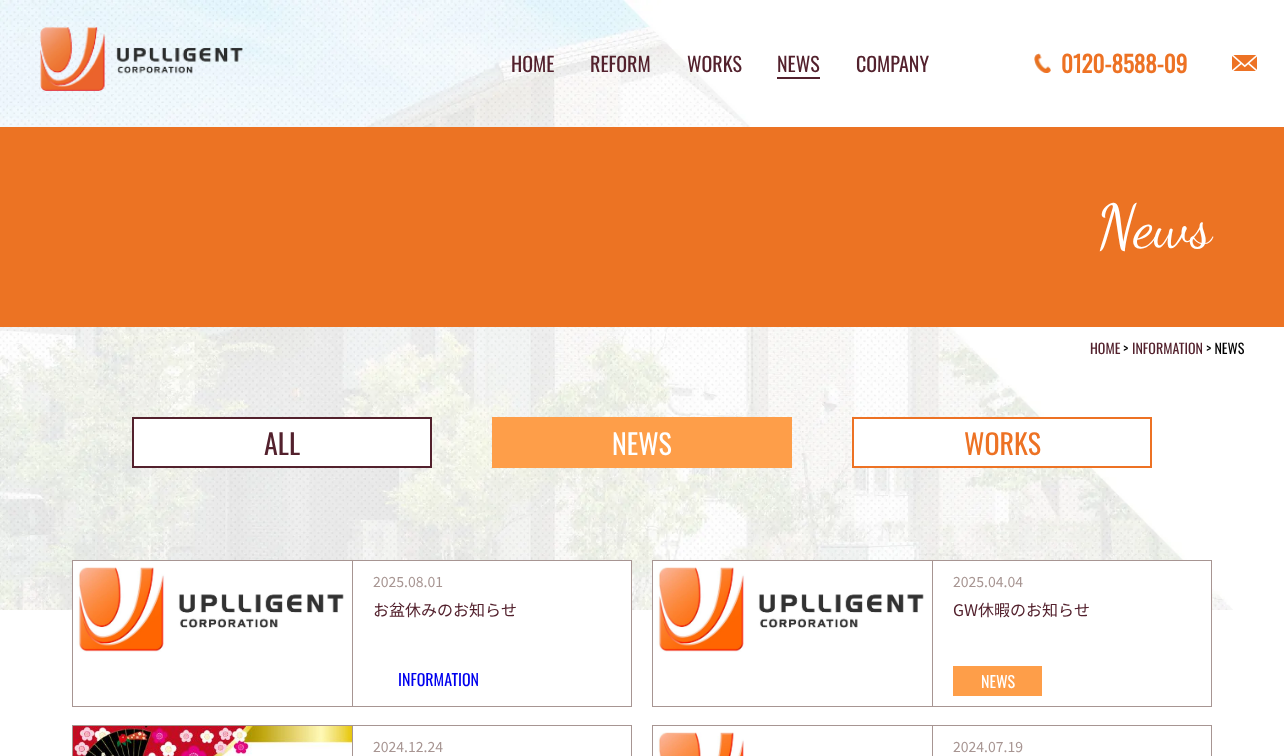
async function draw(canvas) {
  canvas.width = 1284;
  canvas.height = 756;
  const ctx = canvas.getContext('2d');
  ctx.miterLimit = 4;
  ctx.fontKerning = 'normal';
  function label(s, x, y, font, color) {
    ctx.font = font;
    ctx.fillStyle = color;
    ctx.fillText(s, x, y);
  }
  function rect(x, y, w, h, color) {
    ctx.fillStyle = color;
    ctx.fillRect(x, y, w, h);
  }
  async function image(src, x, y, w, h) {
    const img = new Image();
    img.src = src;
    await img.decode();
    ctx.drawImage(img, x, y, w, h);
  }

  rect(0, 0, 1284, 756, '#fff');
  await image('assets/img1.png', 0, 0, 1233, 610);
  await image('assets/img2.png', 40, 27, 203, 64);
  label('HOME', 511, 72, '20px Oswald', '#53212d');
  label('REFORM', 590, 72, '20px Oswald', '#53212d');
  label('WORKS', 687, 72, '20px Oswald', '#53212d');
  label('NEWS', 777, 72, '20px Oswald', '#53212d');
  rect(777, 77, 43, 2, '#53212d');
  label('COMPANY', 856, 72, '20px Oswald', '#53212d');
  await image('assets/img3.png', 1034, 53, 17, 20);
  label('0120-8588-09', 1061, 73, 'bold 23px Oswald', '#ed7224');
  await image('assets/img4.png', 1232, 55, 25, 16);
  rect(0, 127, 1284, 200, '#ec7323');
  label('News', 1097, 246, '60px Dancing Script', '#fff');
  label('HOME', 1090, 354, '14px Oswald', '#53212d');
  label('>', 1123, 354, '14px Oswald', '#000');
  label('INFORMATION', 1132, 354, '14px Oswald', '#53212d');
  label('> NEWS', 1206, 354, '14px Oswald', '#000');
  ctx.fillStyle = '#fff';
  ctx.beginPath();
  ctx.rect(133, 418, 298, 49);
  ctx.fill();
  ctx.strokeStyle = '#53212d';
  ctx.lineWidth = 2;
  ctx.stroke();
  label('ALL', 264, 455, '28px Oswald', '#53212d');
  rect(492, 417, 300, 51, '#fe9e49');
  label('NEWS', 612, 455, '28px Oswald', '#fff');
  rect(854, 419, 238, 47, '#fff');
  ctx.strokeStyle = '#ed7224';
  ctx.strokeRect(853, 418, 298, 49);
  label('WORKS', 964, 455, '28px Oswald', '#ed7224');
  rect(72, 560, 280, 1, '#a79592');
  rect(72, 706, 280, 1, '#a79592');
  rect(72, 560, 1, 147, '#a79592');
  await image('assets/img5.png', 73, 561, 279, 91);
  rect(353, 561, 278, 49, '#fff');
  ctx.strokeStyle = '#a79592';
  ctx.lineWidth = 1;
  ctx.strokeRect(352.5, 560.5, 279, 146);
  label('2025.08.01', 373, 587, '100 14px Noto Sans JP', '#a79592');
  label('お盆休みのお知らせ', 373, 616, '100 16px Noto Sans JP', '#53212d');
  label('INFORMATION', 398, 686, '16px Oswald', '#00e');
  rect(652, 560, 280, 1, '#a79592');
  rect(652, 706, 280, 1, '#a79592');
  rect(652, 560, 1, 147, '#a79592');
  await image('assets/img5.png', 653, 561, 279, 91);
  rect(933, 561, 278, 49, '#fff');
  ctx.strokeRect(932.5, 560.5, 279, 146);
  label('2025.04.04', 953, 587, '100 14px Noto Sans JP', '#a79592');
  label('GW休暇のお知らせ', 953, 616, '100 16px Noto Sans JP', '#53212d');
  rect(953, 666, 89, 30, '#fe9e49');
  label('NEWS', 981, 688, '16px Oswald', '#fff');
  rect(72, 725, 280, 1, '#a79592');
  rect(72, 725, 1, 31, '#a79592');
  await image('assets/img6.png', 73, 726, 279, 30);
  ctx.strokeRect(352.5, 725.5, 279, 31);
  label('2024.12.24', 373, 752, '100 14px Noto Sans JP', '#a79592');
  rect(652, 725, 280, 1, '#a79592');
  rect(652, 725, 1, 31, '#a79592');
  await image('assets/img7.png', 658, 732, 86, 24);
  ctx.strokeRect(932.5, 725.5, 279, 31);
  label('2024.07.19', 953, 752, '100 14px Noto Sans JP', '#a79592');
}

draw(document.querySelector('canvas'));
